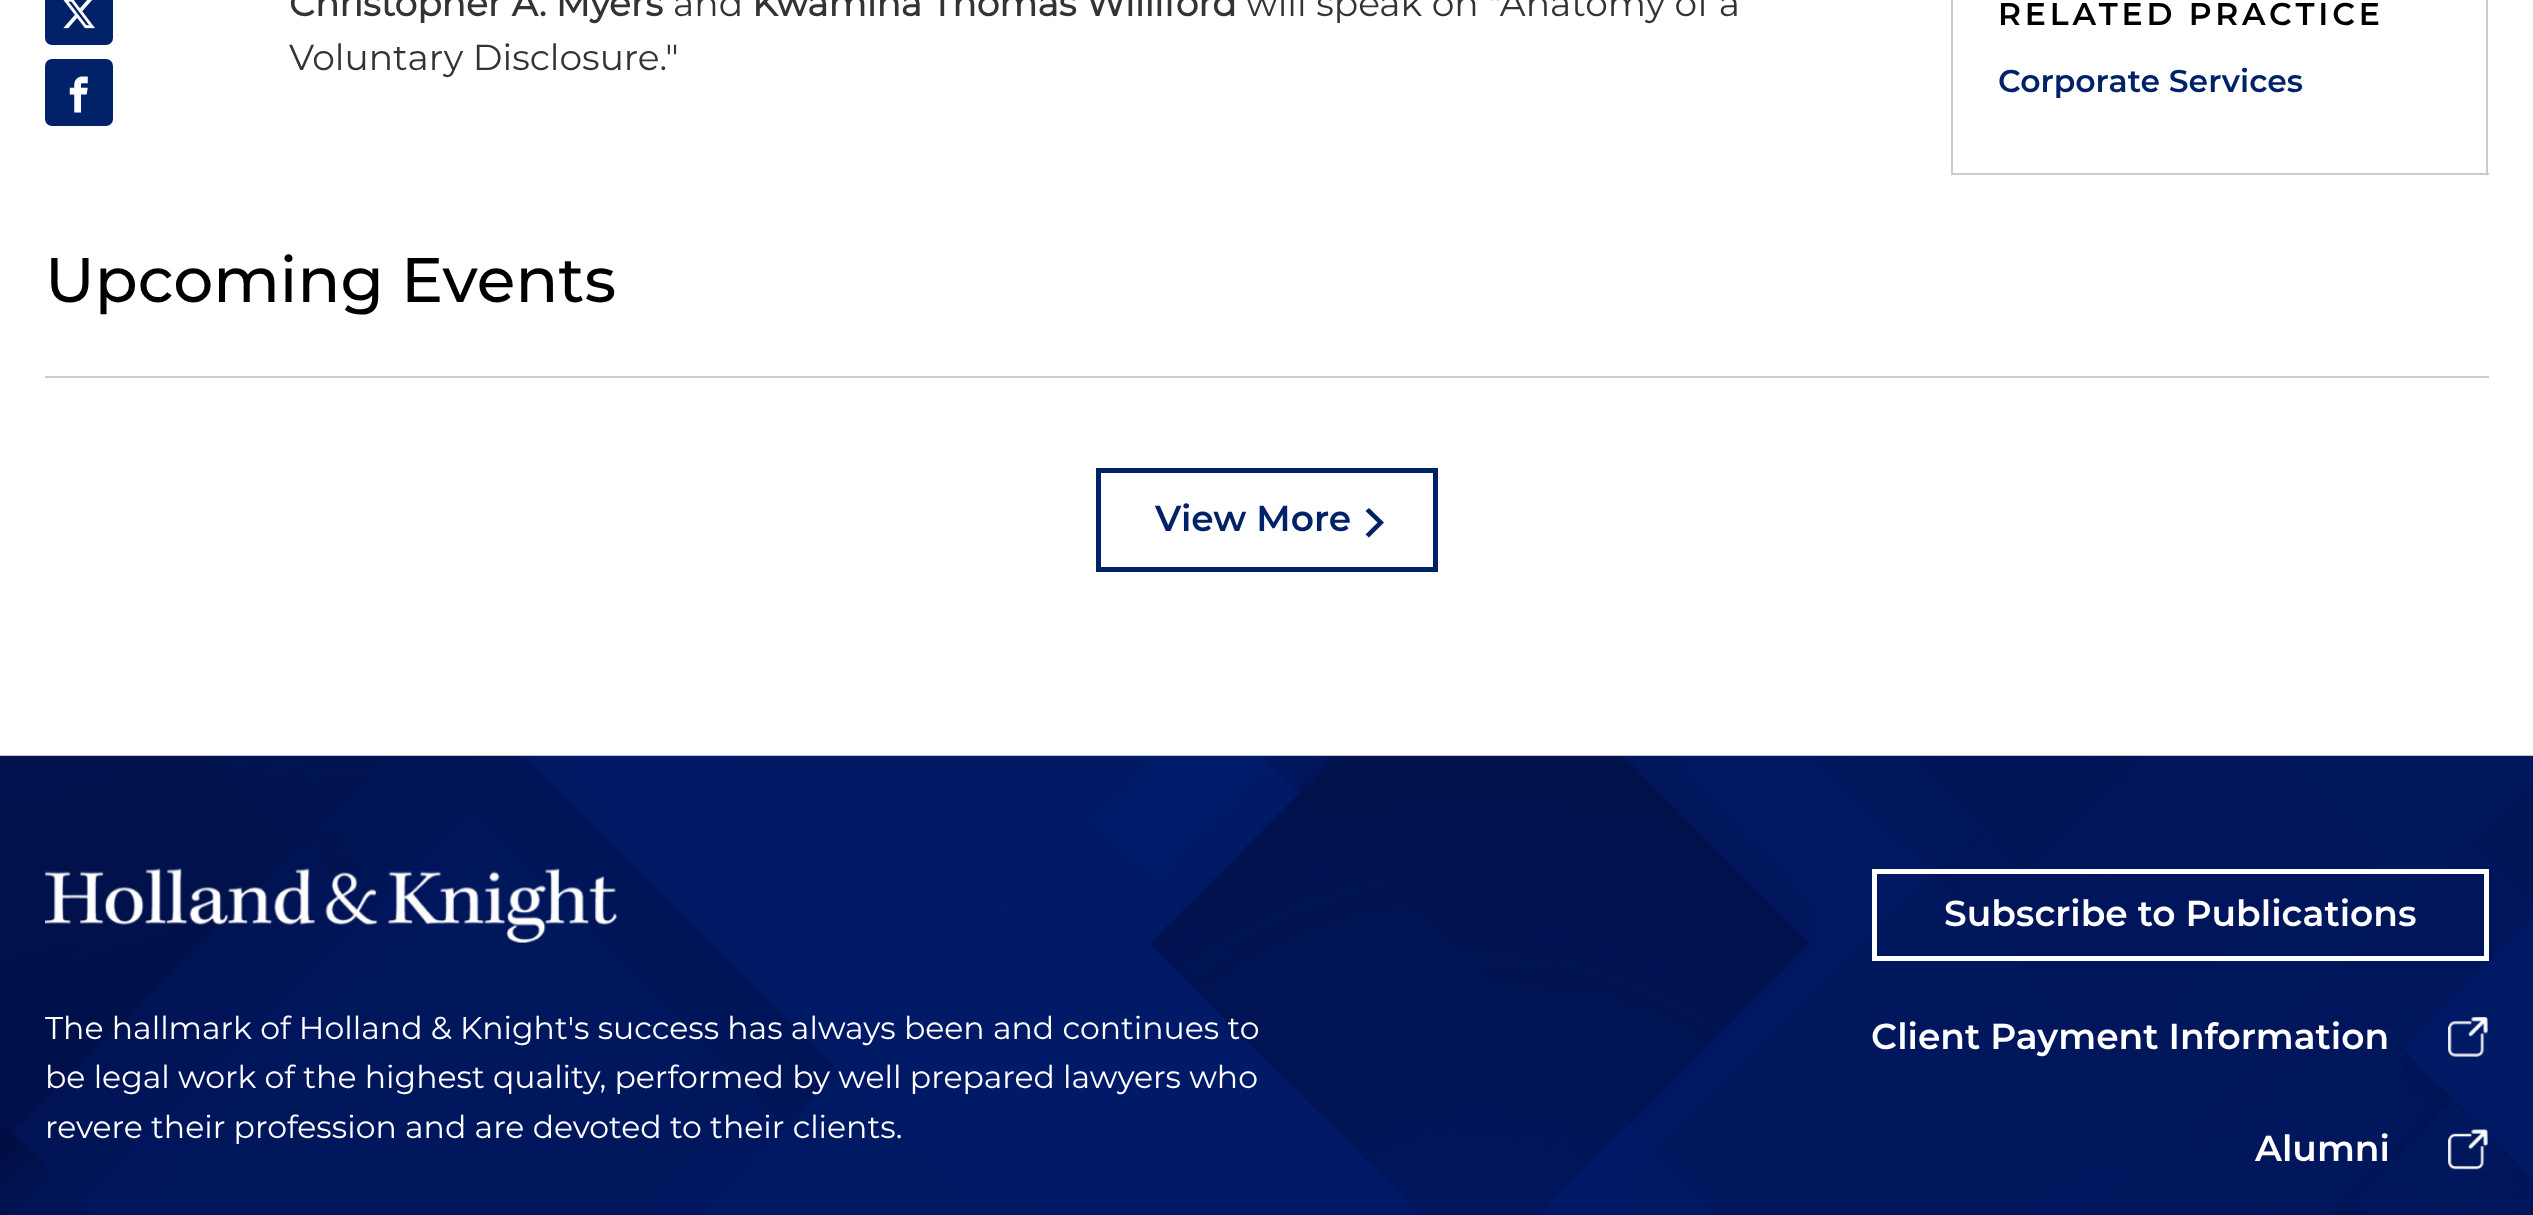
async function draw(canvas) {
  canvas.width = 2533;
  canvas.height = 1215;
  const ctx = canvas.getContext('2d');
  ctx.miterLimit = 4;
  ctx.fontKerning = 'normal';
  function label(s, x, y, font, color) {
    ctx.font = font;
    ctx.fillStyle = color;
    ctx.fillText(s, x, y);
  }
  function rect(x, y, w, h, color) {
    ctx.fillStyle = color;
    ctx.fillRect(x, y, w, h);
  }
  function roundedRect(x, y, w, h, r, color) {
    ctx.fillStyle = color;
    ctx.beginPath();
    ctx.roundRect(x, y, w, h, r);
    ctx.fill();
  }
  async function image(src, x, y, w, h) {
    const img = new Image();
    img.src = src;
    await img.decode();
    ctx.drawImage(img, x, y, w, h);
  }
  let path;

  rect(0, 0, 2533, 1215, '#fff');
  roundedRect(45, -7, 68, 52, 7, '#012169');
  await image('assets/img1.png', 63, 0, 32, 29);
  roundedRect(45, 59, 68, 67, 7, '#012169');
  await image('assets/img2.png', 69, 76, 19, 37);
  label('Christopher A. Myers', 289, 16, 'bold 36px Montserrat', '#333');
  label('and', 673, 16, '36px Montserrat', '#333');
  label('Kwamina Thomas Williford', 752, 16, 'bold 36px Montserrat', '#333');
  label('will speak on "Anatomy of a', 1246, 16, '36px Montserrat', '#333');
  label('Voluntary Disclosure."', 289, 70, '36px Montserrat', '#333');
  ctx.fillStyle = '#cbcbcb';
  path = new Path2D('M2488-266V176L2486 173V-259Z');
  ctx.fill(path);
  rect(1951, 173, 538, 2, '#cbcbcb');
  path = new Path2D('M1951 176V-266L1953-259V173Z');
  ctx.fill(path);
  ctx.letterSpacing = '3.8px';
  label('RELATED PRACTICE', 1998, 25, '600 31.5px Montserrat', '#000');
  ctx.letterSpacing = '0px';
  label('Corporate Services', 1998, 92, '600 31.5px Montserrat', '#012169');
  label('Upcoming Events', 45, 302, '500 63px Montserrat', '#000');
  rect(45, 376, 2444, 2, '#cbcbcb');
  ctx.strokeStyle = '#012169';
  ctx.lineWidth = 5;
  ctx.strokeRect(1098.5, 470.5, 337, 99);
  label('View More', 1155, 531, '600 36px Montserrat', '#012169');
  path = new Path2D('M1365.5 511L1369 508L1384 522.5L1369 537.5L1365.5 534.5L1377.5 522.5Z');
  ctx.fill(path);
  await image('assets/img3.png', 0, 755, 2533, 460);
  await image('assets/img4.png', 45, 868, 572, 75);
  label('The hallmark of Holland & Knight\'s success has always been and continues to', 45, 1039, '31.5px Montserrat', '#fff');
  label('be legal work of the highest quality, performed by well prepared lawyers who', 45, 1088, '31.5px Montserrat', '#fff');
  label('revere their profession and are devoted to their clients.', 45, 1138, '31.5px Montserrat', '#fff');
  ctx.strokeStyle = '#fff';
  ctx.strokeRect(1874.5, 871.5, 612, 87);
  label('Subscribe to Publications', 1944, 926, '600 36px Montserrat', '#fff');
  label('Client Payment Information', 1871, 1049, '600 36px Montserrat', '#fff');
  await image('assets/img5.png', 2448, 1017, 40, 40);
  label('Alumni', 2255, 1161, '600 36px Montserrat', '#fff');
  await image('assets/img6.png', 2448, 1129, 40, 41);
}

draw(document.querySelector('canvas'));
